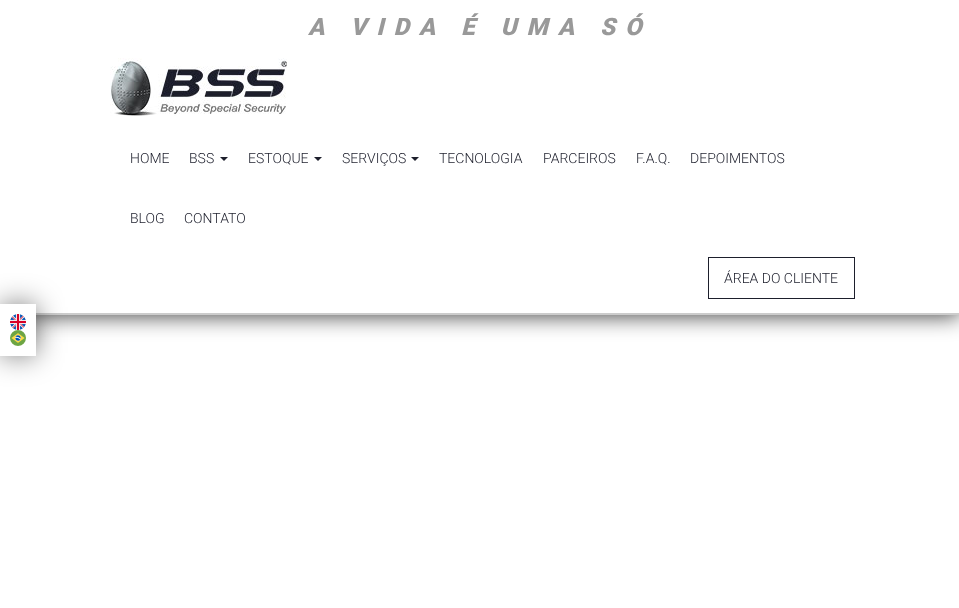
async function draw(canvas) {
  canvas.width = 959;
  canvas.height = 608;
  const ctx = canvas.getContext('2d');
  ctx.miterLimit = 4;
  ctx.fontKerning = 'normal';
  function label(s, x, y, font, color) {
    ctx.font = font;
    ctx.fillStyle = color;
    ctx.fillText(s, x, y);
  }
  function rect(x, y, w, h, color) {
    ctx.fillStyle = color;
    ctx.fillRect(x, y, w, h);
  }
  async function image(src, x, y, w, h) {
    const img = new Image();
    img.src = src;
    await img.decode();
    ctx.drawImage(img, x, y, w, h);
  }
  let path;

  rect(0, 0, 959, 608, '#fff');
  ctx.fillStyle = '#000000bf';
  ctx.filter = 'blur(11px)';
  ctx.beginPath();
  ctx.rect(-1, -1, 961, 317);
  ctx.fill();
  ctx.filter = 'none';
  rect(0, 0, 959, 313, '#fff');
  rect(36, 313, 923, 2, '#ccc');
  ctx.letterSpacing = '10px';
  label('A VIDA É UMA SÓ', 308, 35, 'italic 900 24px Roboto', '#999');
  await image('assets/img1.png', 110, 58, 177, 58);
  ctx.letterSpacing = '0px';
  label('HOME', 130, 163, '300 14px Roboto', '#1d1f2c');
  label('BSS', 189, 163, '300 14px Roboto', '#1d1f2c');
  path = new Path2D('M220 157H228L224 161Z');
  ctx.fill(path);
  label('ESTOQUE', 248, 163, '300 14px Roboto', '#1d1f2c');
  path = new Path2D('M314 157H322L318 161Z');
  ctx.fill(path);
  label('SERVIÇOS', 342, 163, '300 14px Roboto', '#1d1f2c');
  path = new Path2D('M411 157H419L415 161Z');
  ctx.fill(path);
  label('TECNOLOGIA', 439, 163, '300 14px Roboto', '#1d1f2c');
  label('PARCEIROS', 543, 163, '300 14px Roboto', '#1d1f2c');
  label('F.A.Q.', 636, 163, '300 14px Roboto', '#1d1f2c');
  label('DEPOIMENTOS', 690, 163, '300 14px Roboto', '#1d1f2c');
  label('BLOG', 130, 223, '300 14px Roboto', '#1d1f2c');
  label('CONTATO', 184, 223, '300 14px Roboto', '#1d1f2c');
  ctx.strokeStyle = '#1d1f2c';
  ctx.strokeRect(708.5, 257.5, 146, 41);
  label('ÁREA DO CLIENTE', 724, 283, '300 14px Roboto', '#1d1f2c');
  ctx.fillStyle = '#000000bf';
  ctx.filter = 'blur(15px)';
  ctx.beginPath();
  ctx.rect(3, 307, 30, 46);
  ctx.fill();
  ctx.filter = 'none';
  rect(0, 304, 36, 52, '#fff');
  await image('assets/img2.png', 10, 314, 16, 16);
  await image('assets/img3.png', 10, 330, 16, 16);
}

draw(document.querySelector('canvas'));
